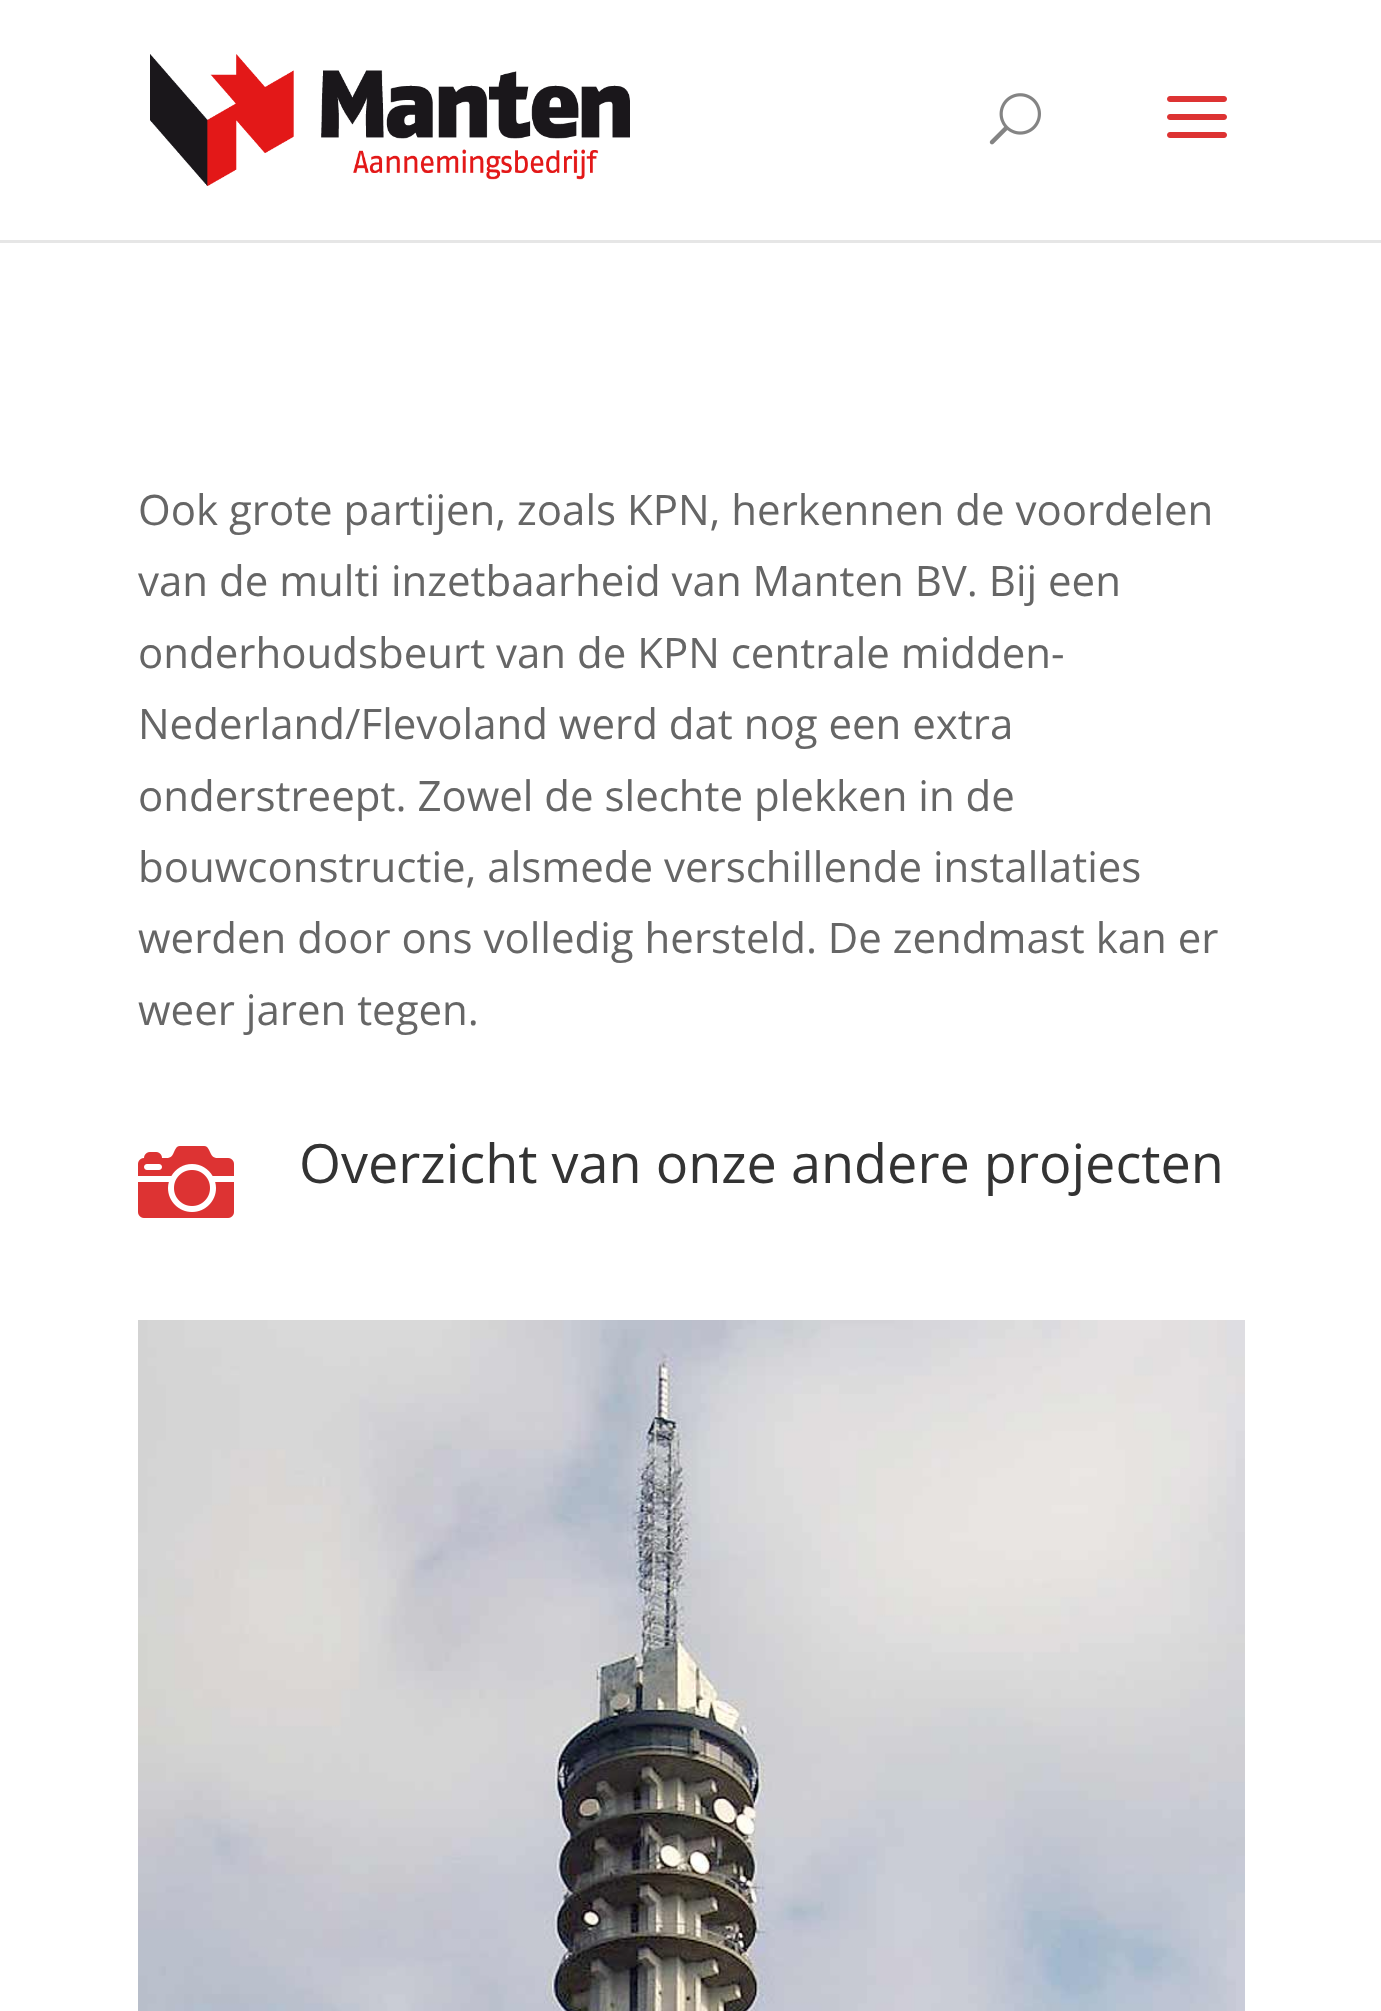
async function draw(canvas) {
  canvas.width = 1381;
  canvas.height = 2011;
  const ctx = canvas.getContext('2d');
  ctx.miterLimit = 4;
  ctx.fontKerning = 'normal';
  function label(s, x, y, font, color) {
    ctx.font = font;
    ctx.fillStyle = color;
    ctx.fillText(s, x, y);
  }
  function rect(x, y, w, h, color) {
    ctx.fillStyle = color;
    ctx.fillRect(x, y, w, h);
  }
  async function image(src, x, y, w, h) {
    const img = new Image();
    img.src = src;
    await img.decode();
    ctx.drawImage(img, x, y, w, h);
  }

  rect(0, 0, 1381, 2011, '#fff');
  rect(0, 240, 1381, 3, '#e6e6e6');
  await image('assets/img1.png', 150, 54, 480, 132);
  await image('assets/img2.png', 989, 93, 52, 52);
  await image('assets/img3.png', 1167, 96, 60, 42);
  label('Ook grote partijen, zoals KPN, herkennen de voordelen', 138, 525, '42px Open Sans', '#666');
  label('van de multi inzetbaarheid van Manten BV. Bij een', 138, 596, '42px Open Sans', '#666');
  label('onderhoudsbeurt van de KPN centrale midden-', 138, 668, '42px Open Sans', '#666');
  label('Nederland/Flevoland werd dat nog een extra', 138, 739, '42px Open Sans', '#666');
  label('onderstreept. Zowel de slechte plekken in de', 138, 811, '42px Open Sans', '#666');
  label('bouwconstructie, alsmede verschillende installaties', 138, 882, '42px Open Sans', '#666');
  label('werden door ons volledig hersteld. De zendmast kan er', 138, 953, '42px Open Sans', '#666');
  label('weer jaren tegen.', 138, 1025, '42px Open Sans', '#666');
  await image('assets/img4.png', 138, 1146, 96, 72);
  label('Overzicht van onze andere projecten', 299, 1183, '54px Open Sans', '#333');
  await image('assets/img5.png', 138, 1320, 1107, 691);
}

draw(document.querySelector('canvas'));
